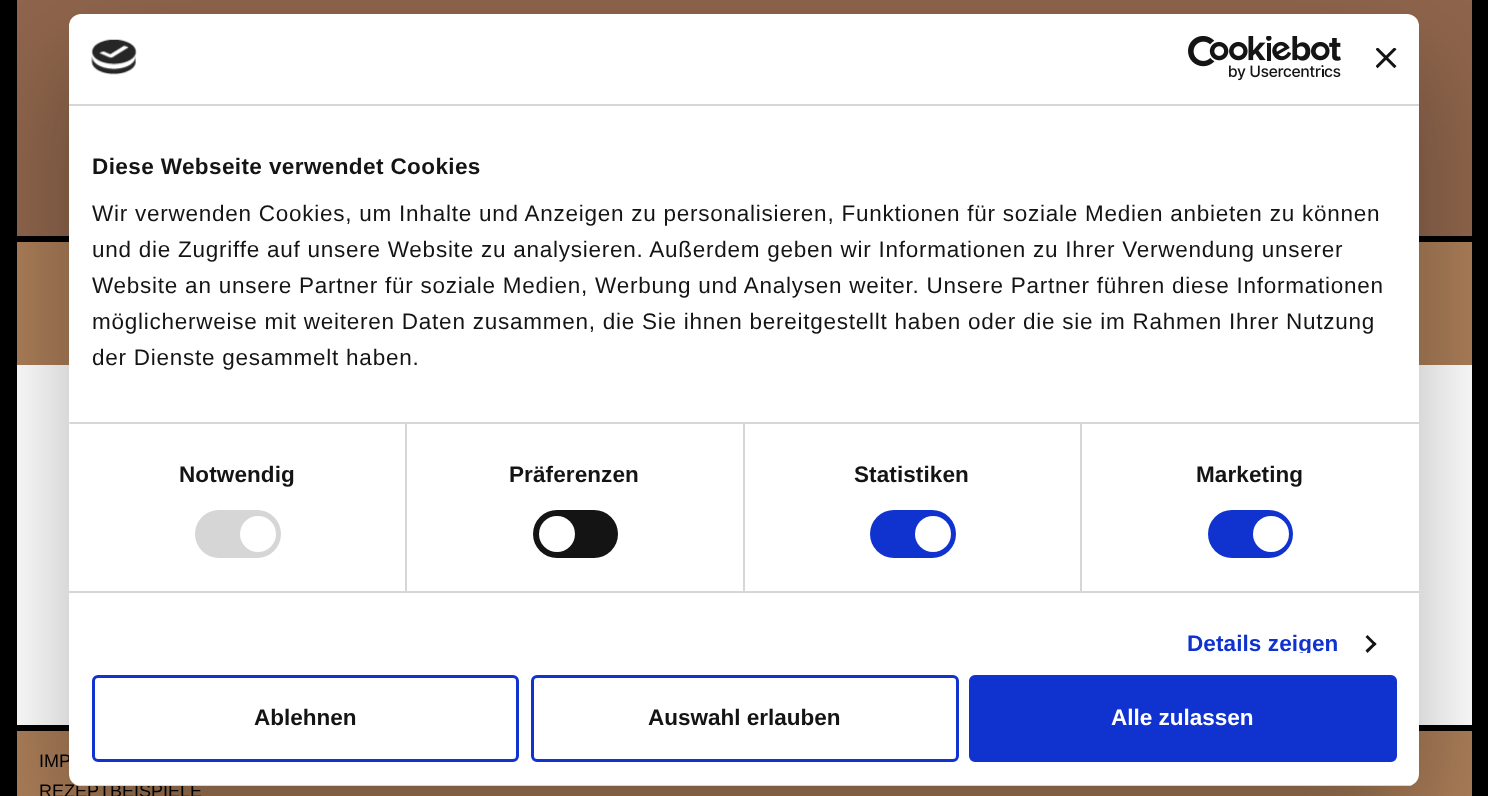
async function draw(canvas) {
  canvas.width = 1488;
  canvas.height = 796;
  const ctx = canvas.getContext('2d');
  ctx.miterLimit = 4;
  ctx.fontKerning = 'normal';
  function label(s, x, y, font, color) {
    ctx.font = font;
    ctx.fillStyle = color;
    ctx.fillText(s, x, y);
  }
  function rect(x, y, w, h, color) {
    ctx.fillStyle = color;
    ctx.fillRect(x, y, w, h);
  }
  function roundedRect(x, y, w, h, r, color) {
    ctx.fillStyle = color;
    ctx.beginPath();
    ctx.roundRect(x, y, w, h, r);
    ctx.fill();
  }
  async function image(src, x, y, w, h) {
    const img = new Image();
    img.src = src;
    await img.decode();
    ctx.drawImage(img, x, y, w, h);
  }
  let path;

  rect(0, 0, 1488, 796, '#000');
  rect(17, 0, 1455, 236, '#8f654c');
  rect(17, 242, 1455, 123, '#aa7d58');
  rect(17, 365, 1455, 360, '#fff');
  rect(17, 731, 1455, 65, '#aa7d58');
  ctx.fillStyle = '#0000004d';
  ctx.filter = 'blur(51px)';
  ctx.beginPath();
  ctx.roundRect(69, 62, 1350, 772, 12);
  ctx.fill();
  ctx.filter = 'none';
  label('IMP', 39, 767, '18px Liberation Sans', '#000');
  label('REZEPTBEISPIELE', 39, 797, '18px Liberation Sans', '#000');
  roundedRect(69, 14, 1350, 772, 12, '#fff');
  rect(69, 104, 1350, 2, '#d6d6d6');
  await image('assets/img1.png', 91, 39, 46, 36);
  await image('assets/img2.png', 1188, 36, 153, 45);
  await image('assets/img3.png', 1376, 48, 21, 21);
  rect(405, 423, 2, 168, '#d6d6d6');
  rect(743, 423, 2, 168, '#d6d6d6');
  rect(1080, 423, 2, 168, '#d6d6d6');
  rect(69, 422, 1350, 2, '#d6d6d6');
  ctx.letterSpacing = '0.4px';
  label('Diese Webseite verwendet Cookies', 92, 174, 'bold 22.5px Liberation Sans', '#141414');
  ctx.letterSpacing = '0.75px';
  label('Wir verwenden Cookies, um Inhalte und Anzeigen zu personalisieren, Funktionen für soziale Medien anbieten zu können', 92, 221, '22.5px Liberation Sans', '#141414');
  label('und die Zugriffe auf unsere Website zu analysieren. Außerdem geben wir Informationen zu Ihrer Verwendung unserer', 92, 257, '22.5px Liberation Sans', '#141414');
  label('Website an unsere Partner für soziale Medien, Werbung und Analysen weiter. Unsere Partner führen diese Informationen', 92, 293, '22.5px Liberation Sans', '#141414');
  label('möglicherweise mit weiteren Daten zusammen, die Sie ihnen bereitgestellt haben oder die sie im Rahmen Ihrer Nutzung', 92, 329, '22.5px Liberation Sans', '#141414');
  label('der Dienste gesammelt haben.', 92, 365, '22.5px Liberation Sans', '#141414');
  rect(69, 591, 1350, 2, '#d6d6d6');
  rect(69, 422, 1, 2, '#e5e5e5');
  ctx.letterSpacing = '0.1px';
  label('Notwendig', 179, 482, 'bold 22.5px Liberation Sans', '#141414');
  roundedRect(195, 510, 86, 48, 24, '#d6d6d6');
  ctx.fillStyle = '#fff';
  ctx.beginPath();
  ctx.arc(258, 534, 18, 0, 2 * Math.PI);
  ctx.fill();
  label('Präferenzen', 509, 482, 'bold 22.5px Liberation Sans', '#141414');
  roundedRect(533, 510, 85, 48, 24, '#141414');
  ctx.fillStyle = '#fff';
  ctx.beginPath();
  ctx.arc(557, 534, 18, 0, 2 * Math.PI);
  ctx.fill();
  label('Statistiken', 854, 482, 'bold 22.5px Liberation Sans', '#141414');
  roundedRect(870, 510, 86, 48, 24, '#1032cf');
  ctx.fillStyle = '#fff';
  ctx.beginPath();
  ctx.arc(933, 534, 18, 0, 2 * Math.PI);
  ctx.fill();
  label('Marketing', 1196, 482, 'bold 22.5px Liberation Sans', '#141414');
  roundedRect(1208, 510, 85, 48, 24, '#1032cf');
  ctx.fillStyle = '#fff';
  ctx.beginPath();
  ctx.arc(1271, 534, 18, 0, 2 * Math.PI);
  ctx.fill();
  ctx.save();
  ctx.beginPath();
  ctx.rect(69, 105, 1350, 548);
  ctx.clip();
  label('Details zeigen', 1187, 651, 'bold 22.5px Liberation Sans', '#1032cf');
  ctx.restore();
  ctx.fillStyle = '#141414';
  path = new Path2D('M1367.5 635L1376.5 644L1374.5 646L1365.5 637Z');
  ctx.fill(path);
  path = new Path2D('M1374.5 642L1376.5 644L1367.5 653L1365.5 650.5Z');
  ctx.fill(path);
  ctx.save();
  ctx.beginPath();
  ctx.roundRect(69, 14, 1350, 772, 12);
  ctx.clip();
  rect(69, 785, 1350, 1, '#d6d6d6');
  ctx.restore();
  ctx.beginPath();
  ctx.roundRect(93.5, 676.5, 424, 84, 4.5);
  ctx.strokeStyle = '#1032cf';
  ctx.lineWidth = 3;
  ctx.stroke();
  ctx.letterSpacing = '0px';
  label('Ablehnen', 254, 725, 'bold 22.5px Liberation Sans', '#141414');
  ctx.beginPath();
  ctx.roundRect(532.5, 676.5, 425, 84, 4.5);
  ctx.stroke();
  label('Auswahl erlauben', 648, 725, 'bold 22.5px Liberation Sans', '#141414');
  ctx.fillStyle = '#1032cf';
  ctx.beginPath();
  ctx.roundRect(970.5, 676.5, 425, 84, 4.5);
  ctx.fill();
  ctx.stroke();
  label('Alle zulassen', 1111, 725, 'bold 22.5px Liberation Sans', '#fff');
}

draw(document.querySelector('canvas'));
